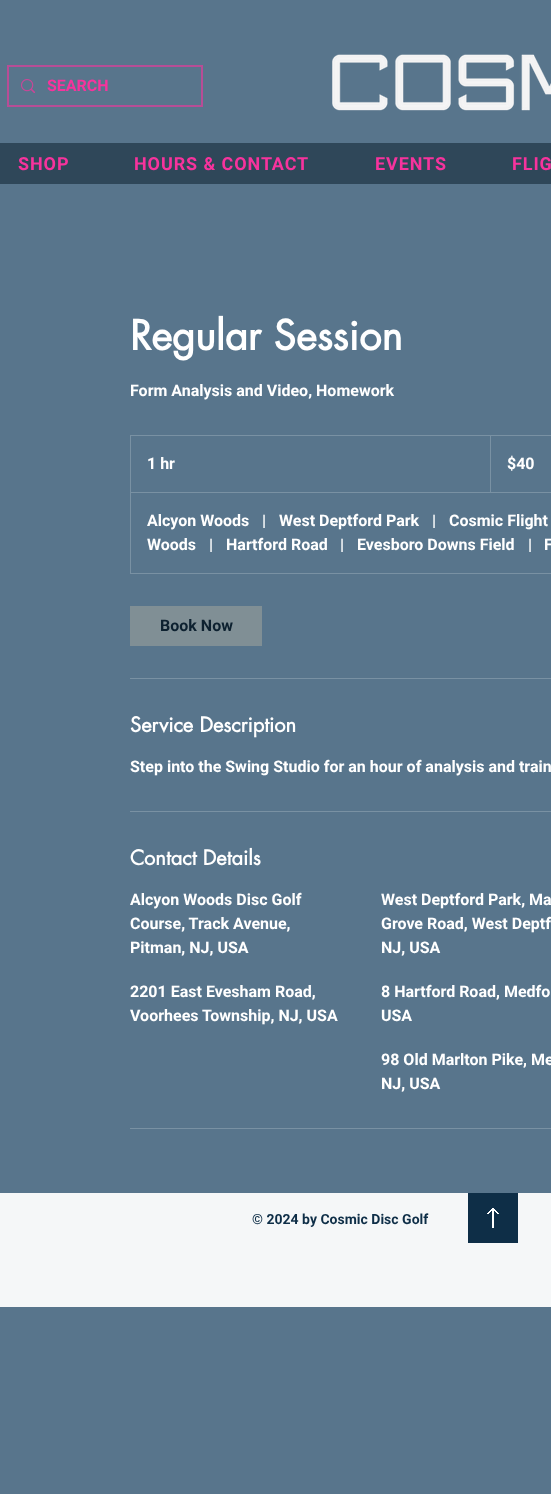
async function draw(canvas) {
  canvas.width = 551;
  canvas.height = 1494;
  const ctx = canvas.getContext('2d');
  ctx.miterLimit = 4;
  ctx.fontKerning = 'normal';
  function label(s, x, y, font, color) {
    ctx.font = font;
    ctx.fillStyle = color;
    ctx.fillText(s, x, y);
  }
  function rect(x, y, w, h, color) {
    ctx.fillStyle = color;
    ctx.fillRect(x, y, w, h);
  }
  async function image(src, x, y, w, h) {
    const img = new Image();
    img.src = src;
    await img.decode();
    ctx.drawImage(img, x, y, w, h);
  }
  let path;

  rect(0, 0, 551, 1494, '#58758c');
  ctx.strokeStyle = '#b74d96';
  ctx.lineWidth = 2;
  ctx.strokeRect(8, 66, 194, 40);
  await image('assets/img1.png', 21, 79, 14, 14);
  label('SEARCH', 47, 91, 'bold 16px Roboto', '#f7339d');
  await image('assets/img2.png', 332, 54, 219, 57);
  rect(0, 143, 551, 41, '#2f4759');
  ctx.letterSpacing = '0.9px';
  label('SHOP', 18, 170, 'bold 18px Roboto', '#f7339d');
  label('HOURS & CONTACT', 134, 170, 'bold 18px Roboto', '#f7339d');
  label('EVENTS', 375, 170, 'bold 18px Roboto', '#f7339d');
  label('FLIG', 512, 170, 'bold 18px Roboto', '#f7339d');
  ctx.letterSpacing = '0px';
  label('Regular Session', 130, 350, 'bold 40px futura', '#fff');
  label('Form Analysis and Video, Homework', 130, 396, 'bold 16px Roboto', '#fff');
  ctx.strokeStyle = '#7991a3';
  ctx.lineWidth = 1;
  ctx.strokeRect(130.5, 435.5, 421, 138);
  label('1 hr', 147, 469, 'bold 16px Roboto', '#fff');
  ctx.fillStyle = '#7991a3';
  path = new Path2D('M490 492V435L491 436V492Z');
  ctx.fill(path);
  label('$40', 507, 469, 'bold 16px Roboto', '#fff');
  ctx.fillStyle = '#7991a3';
  path = new Path2D('M130 492H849V493H131Z');
  ctx.fill(path);
  label('Alcyon Woods', 147, 526, 'bold 16px Roboto', '#fff');
  label('|', 262, 526, 'bold 16px Roboto', '#fff');
  label('West Deptford Park', 279, 526, 'bold 16px Roboto', '#fff');
  label('|', 432, 526, 'bold 16px Roboto', '#fff');
  label('Cosmic Flight', 449, 526, 'bold 16px Roboto', '#fff');
  label('Woods', 147, 550, 'bold 16px Roboto', '#fff');
  label('|', 209, 550, 'bold 16px Roboto', '#fff');
  label('Hartford Road', 226, 550, 'bold 16px Roboto', '#fff');
  label('|', 340, 550, 'bold 16px Roboto', '#fff');
  label('Evesboro Downs Field', 357, 550, 'bold 16px Roboto', '#fff');
  label('|', 528, 550, 'bold 16px Roboto', '#fff');
  label('F', 544, 550, 'bold 16px Roboto', '#fff');
  rect(130, 606, 132, 40, '#808f95');
  label('Book Now', 160, 631, 'bold 16px Roboto', '#0d2130');
  rect(130, 678, 421, 1, '#7991a3');
  label('Service Description', 130, 732, 'bold 20px futura', '#fff');
  label('Step into the Swing Studio for an hour of analysis and train', 130, 772, 'bold 16px Roboto', '#fff');
  rect(130, 811, 421, 1, '#7991a3');
  label('Contact Details', 130, 865, 'bold 20px futura', '#fff');
  label('Alcyon Woods Disc Golf', 130, 905, 'bold 16px Roboto', '#fff');
  label('Course, Track Avenue,', 130, 929, 'bold 16px Roboto', '#fff');
  label('Pitman, NJ, USA', 130, 953, 'bold 16px Roboto', '#fff');
  label('West Deptford Park, Ma', 381, 905, 'bold 16px Roboto', '#fff');
  label('Grove Road, West Deptf', 381, 929, 'bold 16px Roboto', '#fff');
  label('NJ, USA', 381, 953, 'bold 16px Roboto', '#fff');
  label('2201 East Evesham Road,', 130, 997, 'bold 16px Roboto', '#fff');
  label('Voorhees Township, NJ, USA', 130, 1021, 'bold 16px Roboto', '#fff');
  label('8 Hartford Road, Medfo', 381, 997, 'bold 16px Roboto', '#fff');
  label('USA', 381, 1021, 'bold 16px Roboto', '#fff');
  label('98 Old Marlton Pike, Me', 381, 1065, 'bold 16px Roboto', '#fff');
  label('NJ, USA', 381, 1089, 'bold 16px Roboto', '#fff');
  rect(130, 1128, 421, 1, '#7991a3');
  rect(0, 1193, 551, 114, '#f5f7f8');
  label('© 2024 by Cosmic Disc Golf', 252, 1224, 'bold 14px Roboto', '#0e2e47');
  await image('assets/img3.png', 468, 1193, 50, 50);
}

draw(document.querySelector('canvas'));
